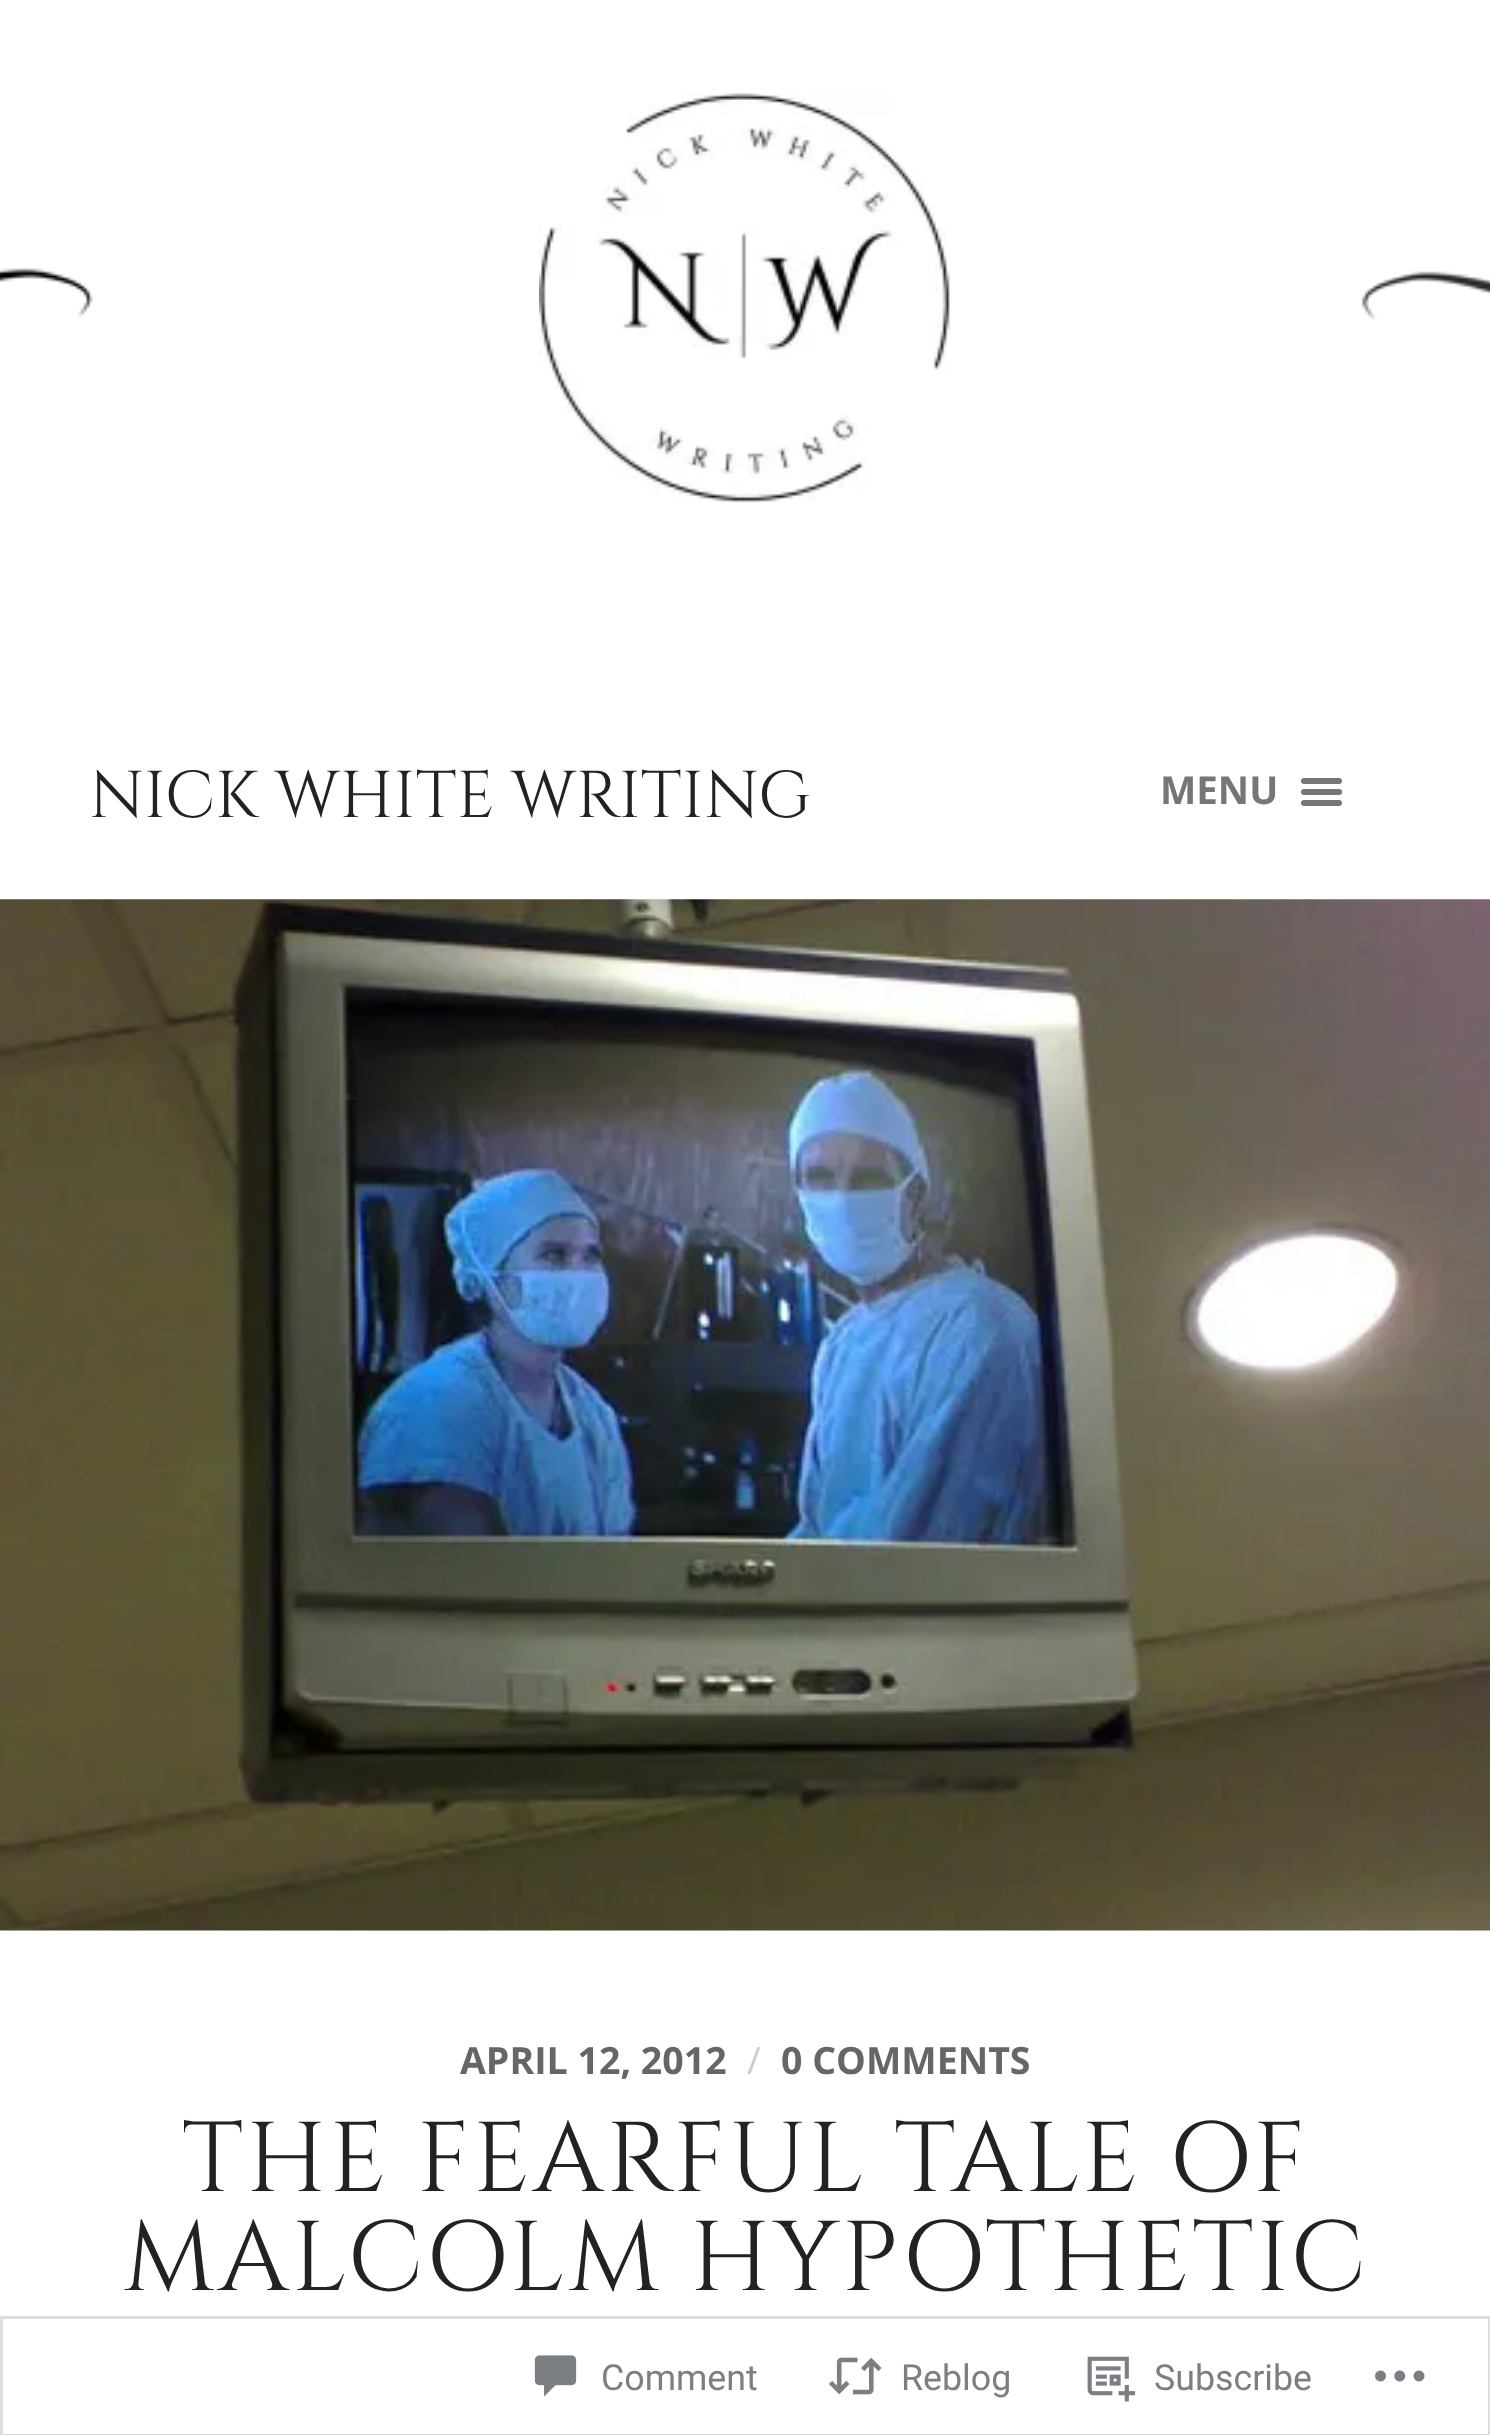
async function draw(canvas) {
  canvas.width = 1490;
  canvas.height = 2435;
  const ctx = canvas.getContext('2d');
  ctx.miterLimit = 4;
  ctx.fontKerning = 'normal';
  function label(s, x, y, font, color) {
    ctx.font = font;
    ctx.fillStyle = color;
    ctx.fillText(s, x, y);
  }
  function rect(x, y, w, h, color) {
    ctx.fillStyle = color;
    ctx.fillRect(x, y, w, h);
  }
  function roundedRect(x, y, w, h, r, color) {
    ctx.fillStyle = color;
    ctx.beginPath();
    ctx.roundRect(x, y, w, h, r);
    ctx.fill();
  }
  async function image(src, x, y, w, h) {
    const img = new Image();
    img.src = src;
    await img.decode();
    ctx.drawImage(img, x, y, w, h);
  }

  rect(0, 0, 1490, 2435, '#fff');
  await image('assets/img1.png', 0, 0, 1490, 320);
  await image('assets/img2.png', 539, 93, 412, 410);
  label('NICK WHITE WRITING', 89, 817, '66px Cinzel', '#222');
  label('MENU', 1160, 804, 'bold 38.5px Open Sans', '#767676');
  roundedRect(1301, 778, 41, 6, 3, '#767676');
  roundedRect(1301, 789, 41, 6, 3, '#767676');
  roundedRect(1301, 800, 41, 6, 3, '#767676');
  await image('assets/img3.png', 0, 899, 1490, 1032);
  label('APRIL 12, 2012', 460, 2074, 'bold 37.5px Open Sans', '#666');
  label('/', 747, 2074, '37.5px Open Sans', '#ccc');
  label('0 COMMENTS', 781, 2074, 'bold 37.5px Open Sans', '#666');
  ctx.letterSpacing = '2.75px';
  label('THE FEARFUL TALE OF', 182, 2191, '99px Cinzel', '#222');
  label('MALCOLM HYPOTHETIC', 123, 2290, '99px Cinzel', '#222');
  ctx.strokeStyle = '#dcdcdefa';
  ctx.lineWidth = 3;
  ctx.strokeRect(1.5, 2317.5, 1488, 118);
  await image('assets/img4.png', 534, 2355, 43, 42);
  ctx.letterSpacing = '0px';
  label('Comment', 601, 2390, '35.75px Roboto', '#7b7f84');
  await image('assets/img5.png', 829, 2357, 53, 38);
  label('Reblog', 901, 2390, '35.75px Roboto', '#7b7f84');
  await image('assets/img6.png', 1087, 2356, 49, 46);
  label('Subscribe', 1154, 2390, '35.75px Roboto', '#7b7f84');
  await image('assets/img7.png', 1375, 2370, 50, 12);
}

draw(document.querySelector('canvas'));
